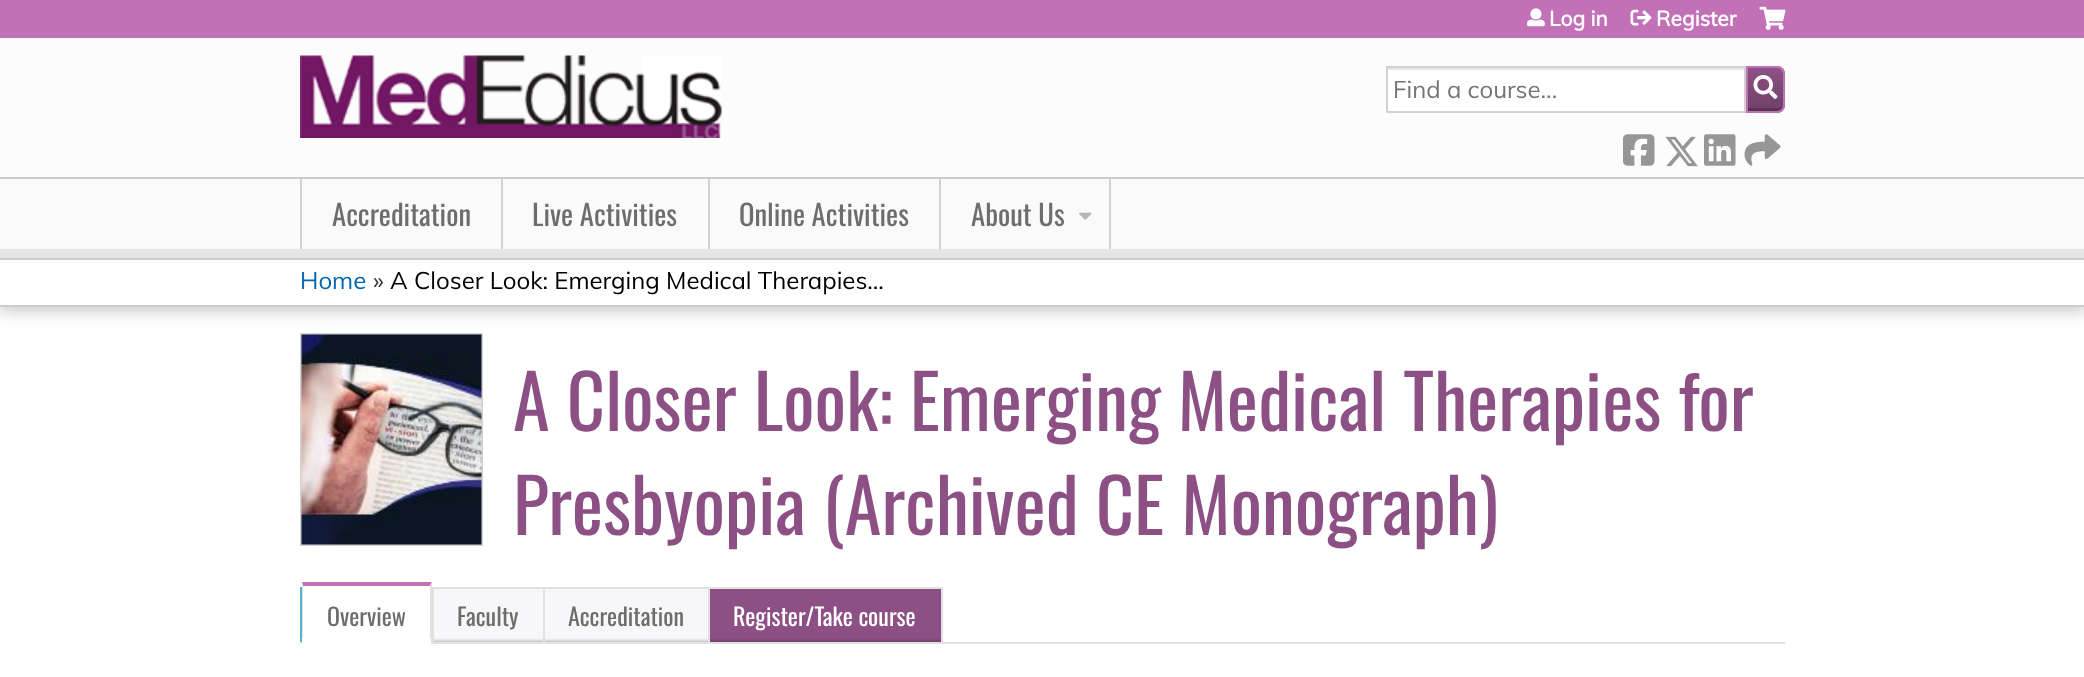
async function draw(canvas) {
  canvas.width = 2084;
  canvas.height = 677;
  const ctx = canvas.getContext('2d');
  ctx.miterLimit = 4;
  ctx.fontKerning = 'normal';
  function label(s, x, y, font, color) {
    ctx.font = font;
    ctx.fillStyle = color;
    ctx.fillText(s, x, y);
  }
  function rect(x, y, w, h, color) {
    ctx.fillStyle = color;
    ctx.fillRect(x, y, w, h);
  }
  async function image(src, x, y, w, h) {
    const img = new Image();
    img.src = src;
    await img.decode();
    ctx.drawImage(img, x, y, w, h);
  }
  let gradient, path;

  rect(0, 0, 2084, 677, '#fff');
  rect(0, 38, 2084, 139, '#fcfcfc');
  rect(0, 0, 2084, 38, '#c271b7');
  await image('assets/img1.png', 300, 55, 422, 83);
  await image('assets/img2.png', 1527, 8, 18, 19);
  label('Log in', 1549, 26, 'bold 21px Muli', '#fff');
  await image('assets/img3.png', 1630, 9, 22, 17);
  label('Register', 1656, 26, 'bold 21px Muli', '#fff');
  await image('assets/img4.png', 1759, 6, 27, 24);
  ctx.fillStyle = '#8c5084';
  ctx.beginPath();
  ctx.roundRect(1746, 66, 39, 47, [0, 8, 8, 0]);
  ctx.fill();
  ctx.save();
  ctx.beginPath();
  ctx.roundRect(1746, 66, 39, 47, [0, 8, 8, 0]);
  ctx.clip();
  gradient = ctx.createLinearGradient(1766, 111, 1766, 68);
  gradient.addColorStop(0, '#00000033');
  gradient.addColorStop(1, '#00000000');
  ctx.fillStyle = gradient;
  ctx.fillRect(1748, 73, 37, 38);
  ctx.restore();
  ctx.fillStyle = '#00000033';
  path = new Path2D('M1748 108V111H1778C1781.5 111 1784 108.5 1784 105V104.5C1783 106.5 1780.5 108 1778 108Z');
  ctx.fill(path);
  ctx.beginPath();
  ctx.roundRect(1747, 67, 37, 45, [0, 7, 7, 0]);
  ctx.strokeStyle = '#c271b7';
  ctx.lineWidth = 2;
  ctx.stroke();
  rect(1388, 70, 356, 41, '#fff');
  rect(1388, 68, 357, 2, '#e6e6e6');
  ctx.strokeStyle = '#d1d1d1';
  ctx.strokeRect(1387, 67, 358, 45);
  label('Find a course...', 1393, 98, '24px Muli', '#757575');
  await image('assets/img5.png', 1753, 75, 25, 24);
  await image('assets/img6.png', 1623, 134, 32, 32);
  await image('assets/img7.png', 1665, 136, 33, 31);
  await image('assets/img8.png', 1704, 134, 32, 32);
  await image('assets/img9.png', 1744, 134, 37, 32);
  ctx.fillStyle = '#00000033';
  ctx.filter = 'blur(7.5px)';
  ctx.beginPath();
  ctx.rect(-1, 261, 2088, 51);
  ctx.fill();
  ctx.filter = 'none';
  rect(0, 179, 2084, 70, '#fafafa');
  rect(0, 177, 2084, 2, '#ccc');
  rect(0, 249, 2084, 9, '#e5e5e5');
  rect(501, 179, 2, 70, '#d2d2d2');
  rect(300, 179, 2, 70, '#d2d2d2');
  label('Accreditation', 332, 226, '28.75px Oswald', '#6d6d6d');
  rect(708, 179, 2, 70, '#d2d2d2');
  label('Live Activities', 532, 226, '28.75px Oswald', '#6d6d6d');
  rect(939, 179, 2, 70, '#d2d2d2');
  label('Online Activities', 739, 226, '28.75px Oswald', '#6d6d6d');
  rect(1109, 179, 2, 70, '#d2d2d2');
  label('About Us', 971, 226, '28.75px Oswald', '#6d6d6d');
  await image('assets/img10.png', 1079, 212, 13, 8);
  rect(0, 260, 2084, 45, '#fff');
  rect(0, 258, 2084, 2, '#ccc');
  rect(0, 305, 2084, 2, '#ccc');
  label('Home', 300, 289, '24px Muli', '#0067b3');
  label('»', 373, 289, '24px Muli', '#2f2f2f');
  label('A Closer Look: Emerging Medical Therapies...', 390, 289, '24px Muli', '#000');
  ctx.strokeStyle = '#d2d2d2';
  ctx.strokeRect(301, 334, 181, 211);
  await image('assets/img11.png', 301, 334, 181, 211);
  label('A Closer Look: Emerging Medical Therapies for', 513, 431, '74.4px Oswald', '#8c5084');
  label('Presbyopia (Archived CE Monograph)', 513, 535, '74.4px Oswald', '#8c5084');
  rect(300, 642, 1485, 2, '#e1e1e1');
  rect(300, 587, 2, 55, '#5ab1d0');
  ctx.fillStyle = '#c271b7';
  path = new Path2D('M302 582H432L430 586H303Z');
  ctx.fill(path);
  ctx.fillStyle = '#e1e1e1';
  path = new Path2D('M432 582V642H430V586Z');
  ctx.fill(path);
  path = new Path2D('M302 642V582L303 586V642Z');
  ctx.fill(path);
  label('Overview', 327, 626, '24px Oswald', '#6d6d6d');
  rect(302, 638, 129, 6, '#fff');
  gradient = ctx.createLinearGradient(488, 642, 488, 588);
  gradient.addColorStop(0, '#c6c6c8');
  gradient.addColorStop(0.07, '#f7f7fa');
  ctx.fillStyle = gradient;
  ctx.fillRect(434, 589, 109, 53);
  rect(432, 587, 113, 2, '#e1e1e1');
  rect(543, 587, 2, 55, '#e1e1e1');
  rect(432, 587, 2, 55, '#e1e1e1');
  label('Faculty', 457, 626, '24px Oswald', '#6d6d6d');
  gradient = ctx.createLinearGradient(626, 642, 626, 588);
  gradient.addColorStop(0, '#c6c6c8');
  gradient.addColorStop(0.07, '#f7f7fa');
  ctx.fillStyle = gradient;
  ctx.fillRect(545, 589, 163, 53);
  rect(543, 587, 167, 2, '#e1e1e1');
  rect(708, 587, 2, 55, '#e1e1e1');
  label('Accreditation', 568, 626, '24px Oswald', '#6d6d6d');
  gradient = ctx.createLinearGradient(825, 642, 825, 588);
  gradient.addColorStop(0, '#70406a');
  gradient.addColorStop(0.07, '#8c5084');
  ctx.fillStyle = gradient;
  ctx.fillRect(710, 589, 231, 53);
  rect(708, 587, 234, 2, '#e1e1e1');
  rect(941, 587, 2, 55, '#e1e1e1');
  label('Register/Take course', 733, 626, '24px Oswald', '#fff');
}

draw(document.querySelector('canvas'));
